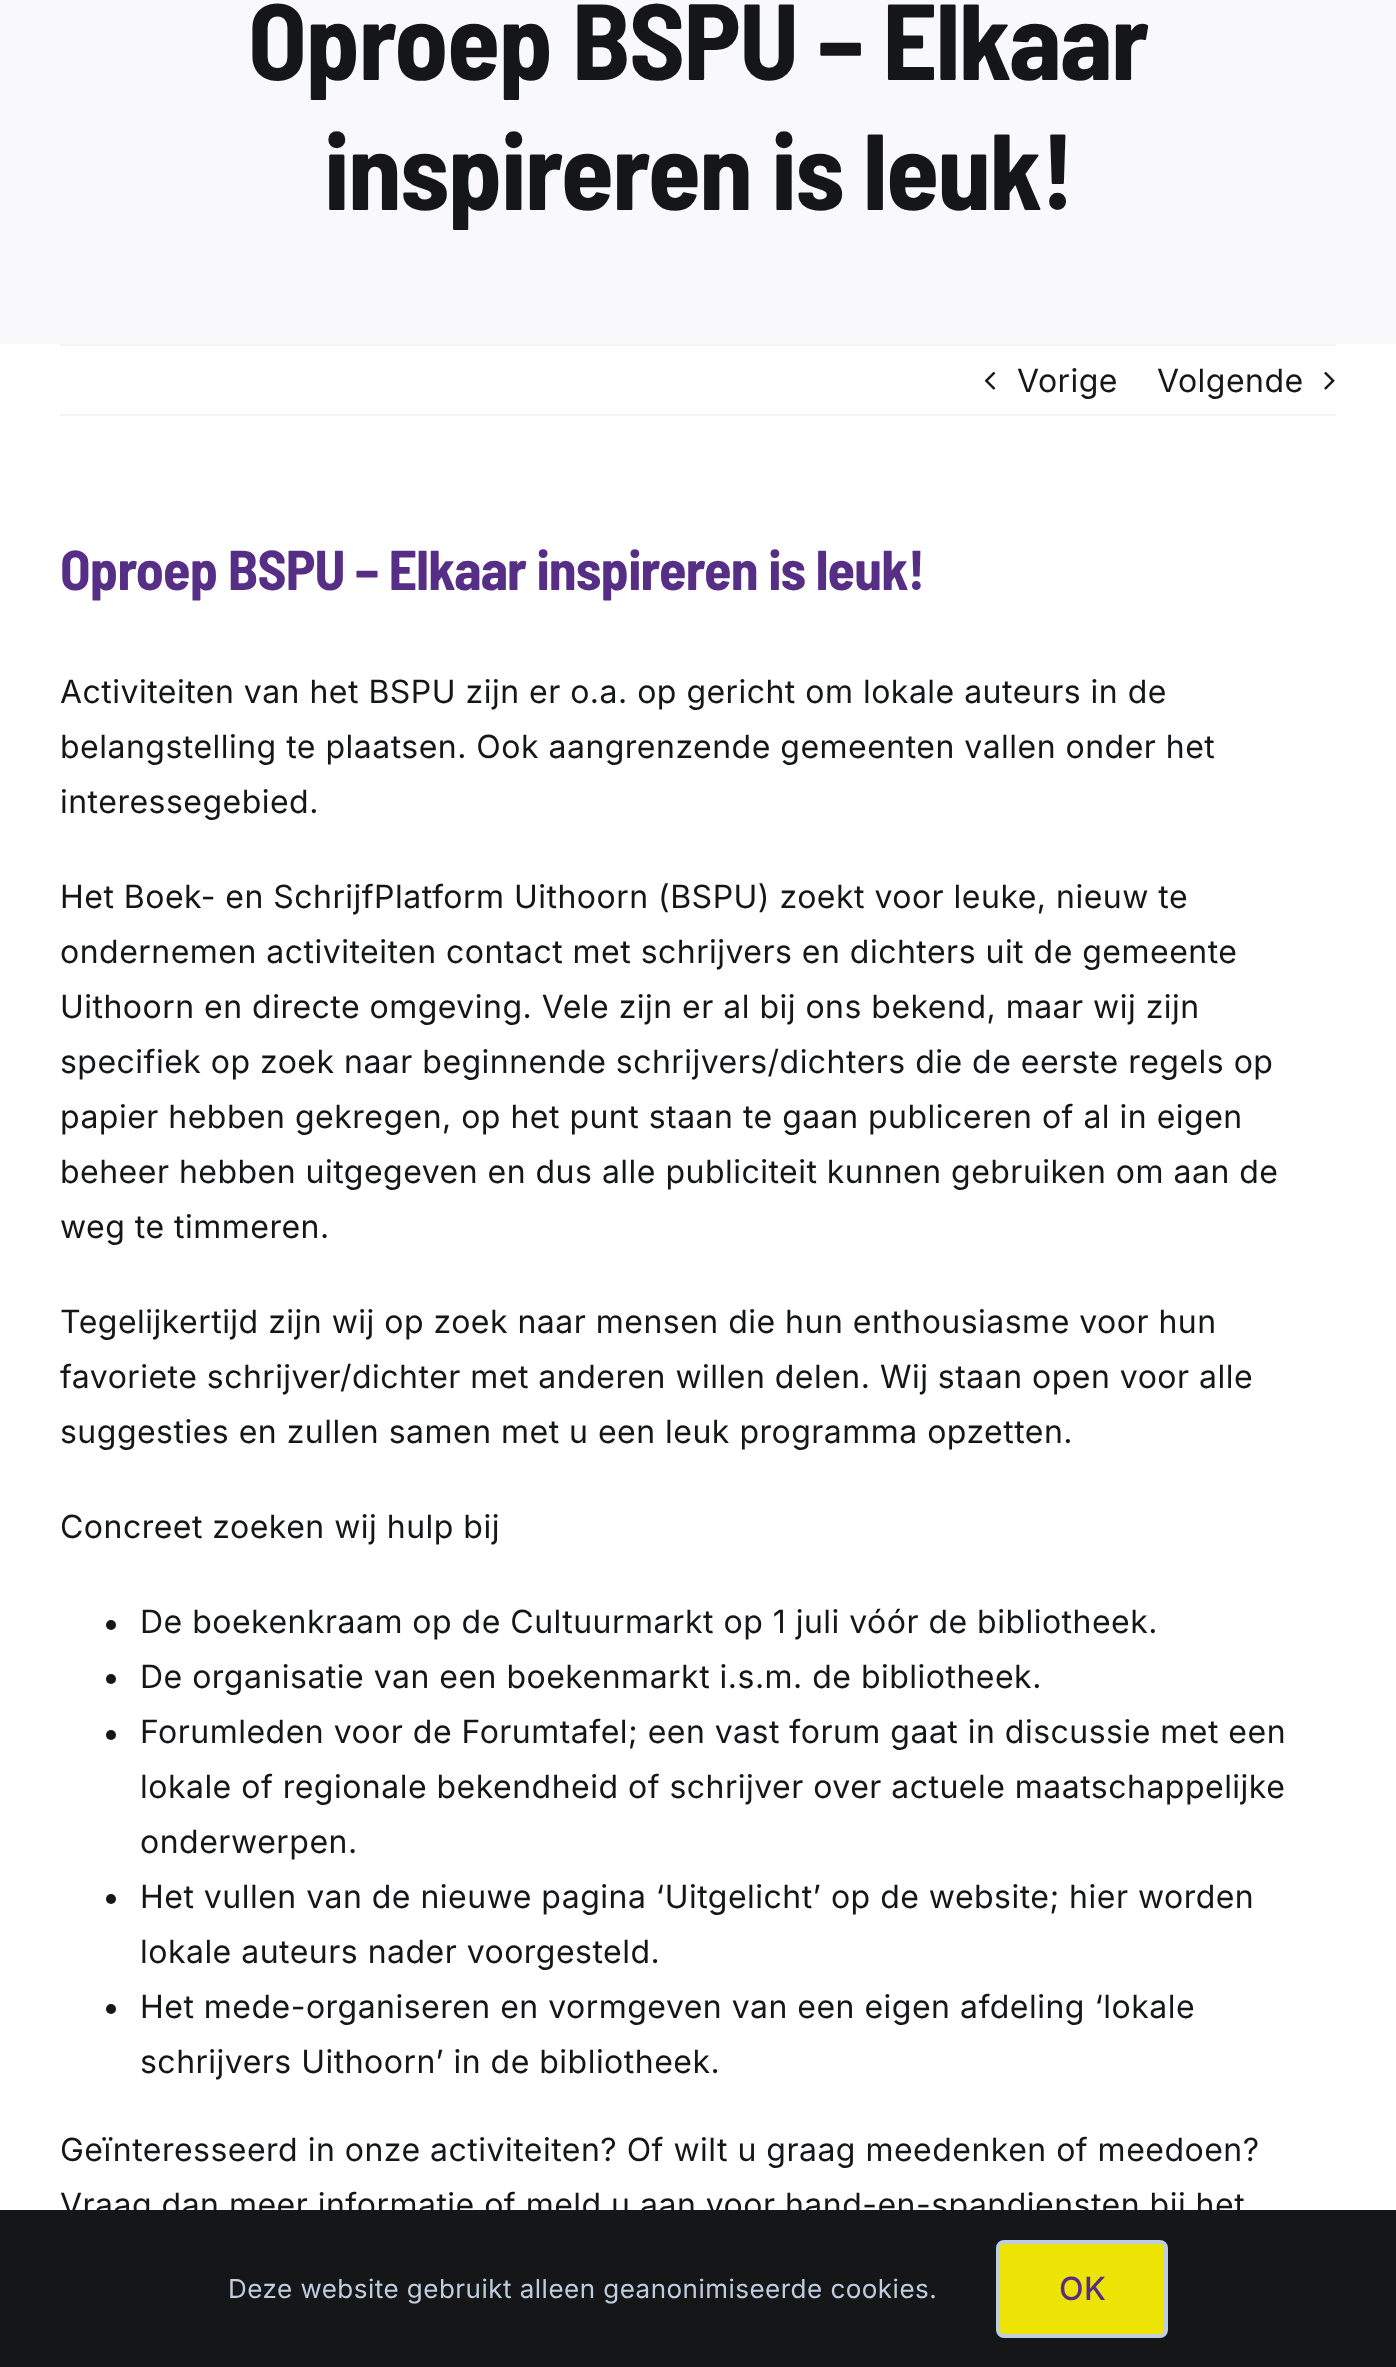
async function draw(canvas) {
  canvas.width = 1396;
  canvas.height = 2367;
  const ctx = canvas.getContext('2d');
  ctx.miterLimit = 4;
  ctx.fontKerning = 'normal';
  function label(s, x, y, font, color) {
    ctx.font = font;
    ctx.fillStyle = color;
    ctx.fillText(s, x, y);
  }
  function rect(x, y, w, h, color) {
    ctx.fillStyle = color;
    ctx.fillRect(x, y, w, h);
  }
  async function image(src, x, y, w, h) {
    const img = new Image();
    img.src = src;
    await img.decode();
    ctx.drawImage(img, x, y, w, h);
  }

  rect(0, 0, 1396, 2367, '#fff');
  rect(0, 0, 1396, 344, '#f9f9fb');
  ctx.letterSpacing = '-1.6px';
  label('Oproep BSPU – Elkaar', 248, 80, 'bold 108px Barlow Semi Condensed', '#141617');
  label('inspireren is leuk!', 324, 210, 'bold 108px Barlow Semi Condensed', '#141617');
  rect(60, 344, 1276, 2, '#f2f3f5');
  rect(60, 414, 1276, 2, '#f2f3f5');
  await image('assets/img1.png', 984, 371, 12, 19);
  ctx.letterSpacing = '0.48px';
  label('Vorige', 1017, 392, '32px Inter', '#141617');
  label('Volgende', 1157, 392, '32px Inter', '#141617');
  await image('assets/img2.png', 1324, 371, 11, 19);
  ctx.letterSpacing = '-0.85px';
  label('Oproep BSPU – Elkaar inspireren is leuk!', 60, 590, 'bold 56px Barlow Semi Condensed', '#572e86');
  ctx.letterSpacing = '0.48px';
  label('Activiteiten van het BSPU zijn er o.a. op gericht om lokale auteurs in de', 60, 703, '32px Inter', '#141617');
  label('belangstelling te plaatsen. Ook aangrenzende gemeenten vallen onder het', 60, 758, '32px Inter', '#141617');
  label('interessegebied.', 60, 813, '32px Inter', '#141617');
  label('Het Boek- en SchrijfPlatform Uithoorn (BSPU) zoekt voor leuke, nieuw te', 60, 908, '32px Inter', '#141617');
  label('ondernemen activiteiten contact met schrijvers en dichters uit de gemeente', 60, 963, '32px Inter', '#141617');
  label('Uithoorn en directe omgeving. Vele zijn er al bij ons bekend, maar wij zijn', 60, 1018, '32px Inter', '#141617');
  label('specifiek op zoek naar beginnende schrijvers/dichters die de eerste regels op', 60, 1073, '32px Inter', '#141617');
  label('papier hebben gekregen, op het punt staan te gaan publiceren of al in eigen', 60, 1128, '32px Inter', '#141617');
  label('beheer hebben uitgegeven en dus alle publiciteit kunnen gebruiken om aan de', 60, 1183, '32px Inter', '#141617');
  label('weg te timmeren.', 60, 1238, '32px Inter', '#141617');
  label('Tegelijkertijd zijn wij op zoek naar mensen die hun enthousiasme voor hun', 60, 1333, '32px Inter', '#141617');
  label('favoriete schrijver/dichter met anderen willen delen. Wij staan open voor alle', 60, 1388, '32px Inter', '#141617');
  label('suggesties en zullen samen met u een leuk programma opzetten.', 60, 1443, '32px Inter', '#141617');
  label('Concreet zoeken wij hulp bij', 60, 1538, '32px Inter', '#141617');
  ctx.beginPath();
  ctx.arc(111, 1625, 5, 0, 2 * Math.PI);
  ctx.fill();
  label('De boekenkraam op de Cultuurmarkt op 1 juli vóór de bibliotheek.', 140, 1633, '32px Inter', '#141617');
  ctx.beginPath();
  ctx.arc(111, 1679, 5, 0, 2 * Math.PI);
  ctx.fill();
  label('De organisatie van een boekenmarkt i.s.m. de bibliotheek.', 140, 1688, '32px Inter', '#141617');
  ctx.beginPath();
  ctx.arc(111, 1735, 5, 0, 2 * Math.PI);
  ctx.fill();
  label('Forumleden voor de Forumtafel; een vast forum gaat in discussie met een', 140, 1743, '32px Inter', '#141617');
  label('lokale of regionale bekendheid of schrijver over actuele maatschappelijke', 140, 1798, '32px Inter', '#141617');
  label('onderwerpen.', 140, 1853, '32px Inter', '#141617');
  ctx.beginPath();
  ctx.arc(111, 1899, 5, 0, 2 * Math.PI);
  ctx.fill();
  label('Het vullen van de nieuwe pagina ‘Uitgelicht’ op de website; hier worden', 140, 1908, '32px Inter', '#141617');
  label('lokale auteurs nader voorgesteld.', 140, 1963, '32px Inter', '#141617');
  ctx.beginPath();
  ctx.arc(111, 2009, 5, 0, 2 * Math.PI);
  ctx.fill();
  label('Het mede-organiseren en vormgeven van een eigen afdeling ‘lokale', 140, 2018, '32px Inter', '#141617');
  label('schrijvers Uithoorn’ in de bibliotheek.', 140, 2073, '32px Inter', '#141617');
  label('Geïnteresseerd in onze activiteiten? Of wilt u graag meedenken of meedoen?', 60, 2161, '32px Inter', '#141617');
  label('Vraag dan meer informatie of meld u aan voor hand-en-spandiensten bij het', 60, 2216, '32px Inter', '#141617');
  rect(0, 2210, 1396, 157, '#141617');
  label('Deze website gebruikt alleen geanonimiseerde cookies.', 228, 2298, '26px Inter', '#bfcde0');
  ctx.fillStyle = '#ede305';
  ctx.beginPath();
  ctx.roundRect(998, 2242, 168, 94, 6);
  ctx.fill();
  ctx.strokeStyle = '#bfcde0';
  ctx.lineWidth = 4;
  ctx.stroke();
  label('OK', 1059, 2300, '500 32px Inter', '#572e86');
}

draw(document.querySelector('canvas'));
